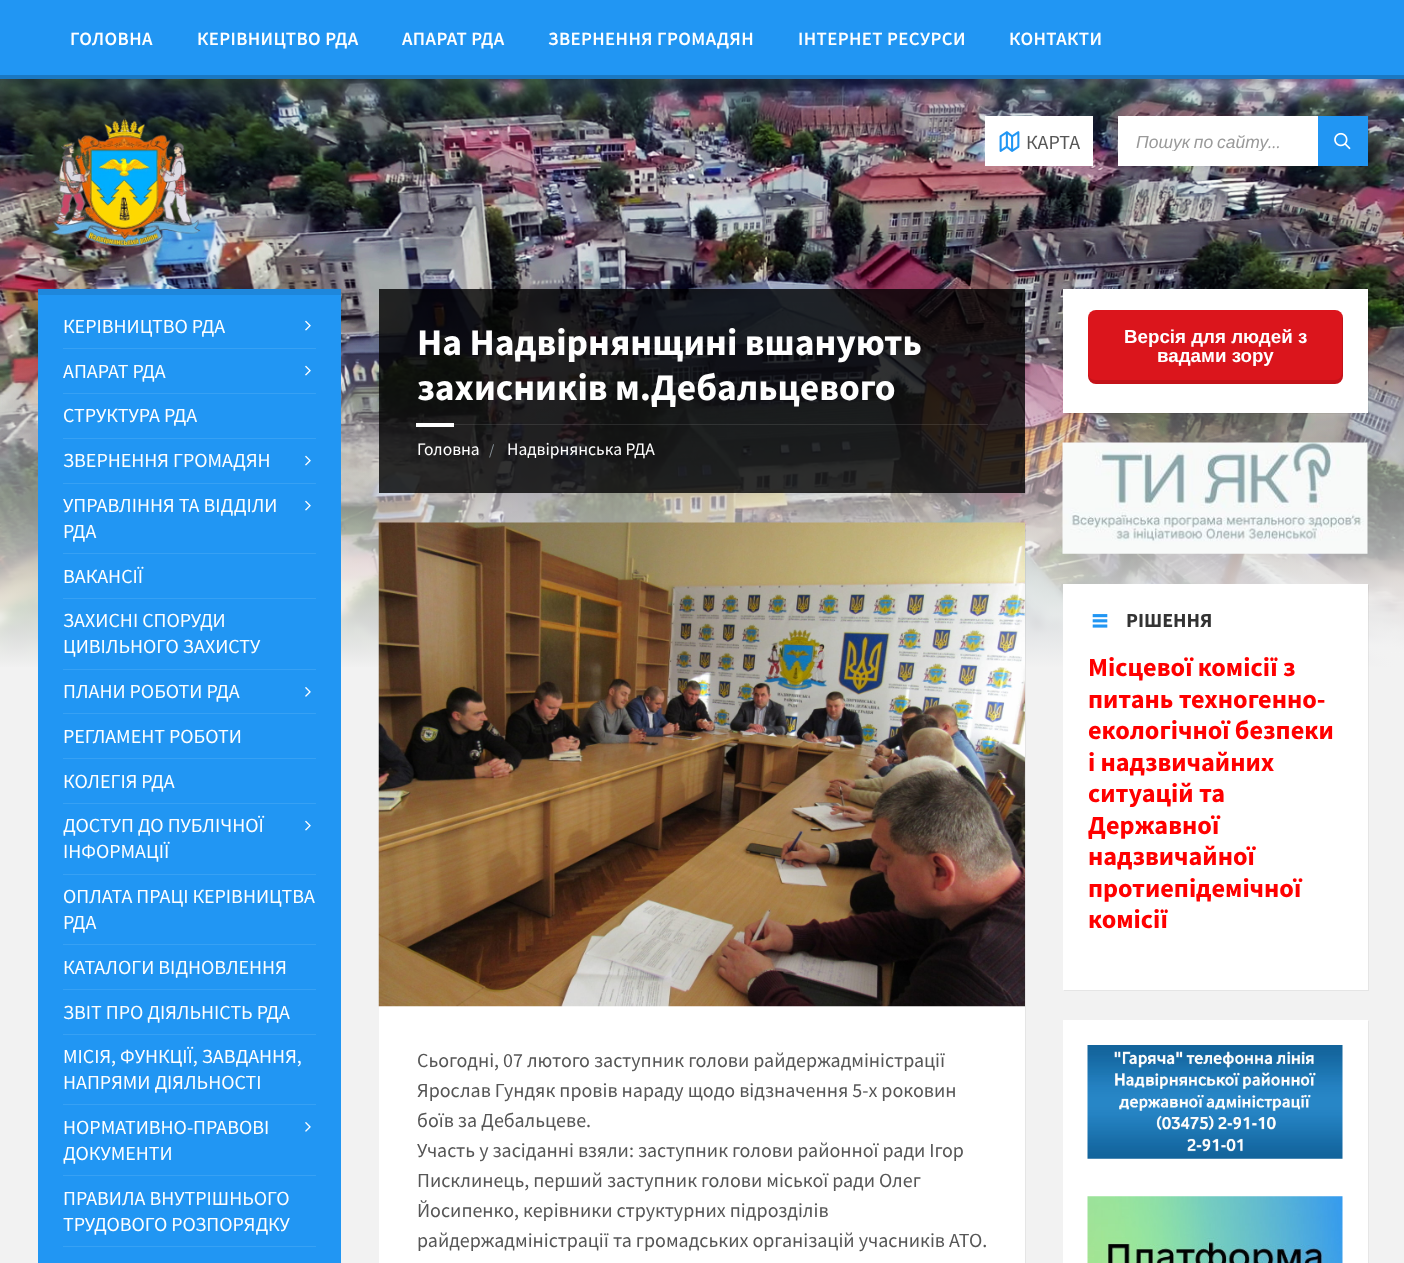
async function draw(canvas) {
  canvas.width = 1404;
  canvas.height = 1263;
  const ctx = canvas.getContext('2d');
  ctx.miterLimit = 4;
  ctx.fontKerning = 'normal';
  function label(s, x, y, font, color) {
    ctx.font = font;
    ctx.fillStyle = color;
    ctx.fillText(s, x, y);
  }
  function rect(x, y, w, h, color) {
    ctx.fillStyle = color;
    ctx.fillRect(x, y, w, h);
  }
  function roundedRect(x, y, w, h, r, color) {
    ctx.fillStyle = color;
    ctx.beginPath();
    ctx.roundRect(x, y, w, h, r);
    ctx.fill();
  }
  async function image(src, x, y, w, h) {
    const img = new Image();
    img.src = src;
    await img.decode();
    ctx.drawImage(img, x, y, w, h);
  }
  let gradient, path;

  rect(0, 0, 1404, 1263, '#f2f2f2');
  rect(0, 0, 1404, 75, '#2196f3');
  rect(0, 75, 1404, 4, '#1a78c2');
  ctx.letterSpacing = '0.4px';
  label('ГОЛОВНА', 70, 45, '600 18.75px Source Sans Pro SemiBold', '#fff');
  label('КЕРІВНИЦТВО РДА', 197, 45, '600 18.75px Source Sans Pro SemiBold', '#fff');
  label('АПАРАТ РДА', 402, 45, '600 18.75px Source Sans Pro SemiBold', '#fff');
  label('ЗВЕРНЕННЯ ГРОМАДЯН', 548, 45, '600 18.75px Source Sans Pro SemiBold', '#fff');
  label('ІНТЕРНЕТ РЕСУРСИ', 798, 45, '600 18.75px Source Sans Pro SemiBold', '#fff');
  label('КОНТАКТИ', 1009, 45, '600 18.75px Source Sans Pro SemiBold', '#fff');
  await image('assets/img4.png', 0, 79, 1404, 588);
  await image('assets/img1.png', 50, 117, 151, 130);
  rect(985, 116, 108, 50, '#fff');
  await image('assets/img2.png', 999, 131, 21, 21);
  ctx.letterSpacing = '0px';
  label('КАРТА', 1026, 149, '20px Source Sans Pro', '#565656');
  rect(1118, 116, 200, 50, '#fff');
  ctx.save();
  ctx.beginPath();
  ctx.rect(1136, 130, 157, 21);
  ctx.clip();
  ctx.wordSpacing = '-1px';
  label('Пошук по сайту', 1136, 148, 'italic 17.5px Liberation Sans', '#9a9a9a');
  ctx.restore();
  label('...', 1268, 148, 'italic 17.5px Source Sans Pro', '#9a9a9a');
  rect(1318, 116, 50, 50, '#2196f3');
  await image('assets/img3.png', 1334, 132, 17, 18);
  gradient = ctx.createLinearGradient(703, 294, 703, 669);
  gradient.addColorStop(0, '#f2f2f200');
  gradient.addColorStop(1, '#f2f2f2');
  ctx.fillStyle = gradient;
  ctx.fillRect(0, 302, 1404, 365);
  rect(38, 295, 303, 968, '#2196f3');
  rect(38, 289, 303, 6, '#1e87db');
  label('КЕРІВНИЦТВО РДА', 63, 333, '20px Source Sans Pro', '#fff');
  await image('assets/img5.png', 305, 320, 6, 11);
  rect(63, 348, 253, 1, '#37a1f4');
  label('АПАРАТ РДА', 63, 378, '20px Source Sans Pro', '#fff');
  await image('assets/img5.png', 305, 365, 6, 11);
  rect(63, 393, 253, 1, '#37a1f4');
  label('СТРУКТУРА РДА', 63, 422, '20px Source Sans Pro', '#fff');
  rect(63, 438, 253, 1, '#37a1f4');
  label('ЗВЕРНЕННЯ ГРОМАДЯН', 63, 467, '20px Source Sans Pro', '#fff');
  await image('assets/img5.png', 305, 455, 6, 11);
  rect(63, 483, 253, 1, '#37a1f4');
  label('УПРАВЛІННЯ ТА ВІДДІЛИ', 63, 512, '20px Source Sans Pro', '#fff');
  label('РДА', 63, 538, '20px Source Sans Pro', '#fff');
  await image('assets/img5.png', 305, 500, 6, 11);
  rect(63, 553, 253, 1, '#37a1f4');
  label('ВАКАНСІЇ', 63, 583, '20px Source Sans Pro', '#fff');
  rect(63, 598, 253, 1, '#37a1f4');
  label('ЗАХИСНІ СПОРУДИ', 63, 627, '20px Source Sans Pro', '#fff');
  label('ЦИВІЛЬНОГО ЗАХИСТУ', 63, 653, '20px Source Sans Pro', '#fff');
  rect(63, 669, 253, 1, '#37a1f4');
  label('ПЛАНИ РОБОТИ РДА', 63, 698, '20px Source Sans Pro', '#fff');
  await image('assets/img6.png', 305, 687, 6, 10);
  rect(63, 713, 253, 1, '#37a1f4');
  label('РЕГЛАМЕНТ РОБОТИ', 63, 743, '20px Source Sans Pro', '#fff');
  rect(63, 758, 253, 1, '#37a1f4');
  label('КОЛЕГІЯ РДА', 63, 788, '20px Source Sans Pro', '#fff');
  rect(63, 803, 253, 1, '#37a1f4');
  label('ДОСТУП ДО ПУБЛІЧНОЇ', 63, 832, '20px Source Sans Pro', '#fff');
  label('ІНФОРМАЦІЇ', 63, 858, '20px Source Sans Pro', '#fff');
  await image('assets/img5.png', 305, 820, 6, 11);
  rect(63, 874, 253, 1, '#37a1f4');
  label('ОПЛАТА ПРАЦІ КЕРІВНИЦТВА', 63, 903, '20px Source Sans Pro', '#fff');
  label('РДА', 63, 929, '20px Source Sans Pro', '#fff');
  rect(63, 944, 253, 1, '#37a1f4');
  label('КАТАЛОГИ ВІДНОВЛЕННЯ', 63, 974, '20px Source Sans Pro', '#fff');
  rect(63, 989, 253, 1, '#37a1f4');
  label('ЗВІТ ПРО ДІЯЛЬНІСТЬ РДА', 63, 1019, '20px Source Sans Pro', '#fff');
  rect(63, 1034, 253, 1, '#37a1f4');
  label('МІСІЯ, ФУНКЦІЇ, ЗАВДАННЯ,', 63, 1063, '20px Source Sans Pro', '#fff');
  label('НАПРЯМИ ДІЯЛЬНОСТІ', 63, 1089, '20px Source Sans Pro', '#fff');
  rect(63, 1104, 253, 1, '#37a1f4');
  label('НОРМАТИВНО-ПРАВОВІ', 63, 1134, '20px Source Sans Pro', '#fff');
  label('ДОКУМЕНТИ', 63, 1160, '20px Source Sans Pro', '#fff');
  await image('assets/img6.png', 305, 1122, 6, 10);
  rect(63, 1175, 253, 1, '#37a1f4');
  label('ПРАВИЛА ВНУТРІШНЬОГО', 63, 1205, '20px Source Sans Pro', '#fff');
  label('ТРУДОВОГО РОЗПОРЯДКУ', 63, 1231, '20px Source Sans Pro', '#fff');
  rect(63, 1246, 253, 1, '#37a1f4');
  rect(379, 289, 646, 204, '#000000cc');
  label('На Надвірнянщині вшанують', 417, 355, 'bold 37.5px Source Sans Pro', '#fff');
  label('захисників м.Дебальцевого', 417, 400, 'bold 37.5px Source Sans Pro', '#fff');
  rect(454, 424, 534, 1, '#ffffff1a');
  rect(416, 423, 38, 4, '#fff');
  label('Головна', 417, 455, '17.5px Source Sans Pro', '#fff');
  label('/', 489, 455, '15px Source Sans Pro', '#8a949b');
  label('Надвірнянська РДА', 507, 455, '17.5px Source Sans Pro', '#fff');
  ctx.fillStyle = '#0000000d';
  path = new Path2D('M380 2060V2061H1026V524H1025V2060Z');
  ctx.fill(path);
  rect(379, 1006, 646, 257, '#fff');
  await image('assets/img7.png', 378, 522, 647, 485);
  label('Сьогодні, 07 лютого заступник голови райдержадміністрації', 417, 1067, '20px Source Sans Pro', '#565656');
  label('Ярослав Гундяк провів нараду щодо відзначення 5-х роковин', 417, 1097, '20px Source Sans Pro', '#565656');
  label('боїв за Дебальцеве.', 417, 1127, '20px Source Sans Pro', '#565656');
  label('Участь у засіданні взяли: заступник голови районної ради Ігор', 417, 1157, '20px Source Sans Pro', '#565656');
  label('Писклинець, перший заступник голови міської ради Олег', 417, 1187, '20px Source Sans Pro', '#565656');
  label('Йосипенко, керівники структурних підрозділів', 417, 1217, '20px Source Sans Pro', '#565656');
  label('райдержадміністрації та громадських організацій учасників АТО.', 417, 1247, '20px Source Sans Pro', '#565656');
  ctx.fillStyle = '#0000000d';
  path = new Path2D('M1064 412V414H1369V290H1368V412Z');
  ctx.fill(path);
  rect(1063, 289, 305, 124, '#fff');
  roundedRect(1088, 310, 255, 74, 8, '#db151c');
  ctx.fillStyle = '#0000001a';
  path = new Path2D('M1088 372V376C1088 380 1092 384 1096 384H1335C1339 384 1343 380 1343 376V318C1343 317 1343 315 1342 314V372C1342 377 1339 380 1335 380H1095C1091 380 1088 377 1088 372Z');
  ctx.fill(path);
  label('Версія для людей з', 1124, 343, 'bold 18.75px Liberation Sans', '#fff');
  label('вадами зору', 1157, 362, 'bold 18.75px Liberation Sans', '#fff');
  await image('assets/img8.png', 1062, 442, 306, 112);
  ctx.fillStyle = '#0000000d';
  path = new Path2D('M1064 990V991H1369V585H1368V990Z');
  ctx.fill(path);
  rect(1063, 584, 305, 406, '#fff');
  await image('assets/img9.png', 1092, 614, 16, 14);
  label('РІШЕННЯ', 1126, 627, 'bold 20px Source Sans Pro', '#333');
  label('Місцевої комісії з', 1088, 676, 'bold 26.25px Source Sans Pro', '#f00');
  label('питань техногенно-', 1088, 708, 'bold 26.25px Source Sans Pro', '#f00');
  label('екологічної безпеки', 1088, 739, 'bold 26.25px Source Sans Pro', '#f00');
  label('і надзвичайних', 1088, 771, 'bold 26.25px Source Sans Pro', '#f00');
  label('ситуацій та', 1088, 802, 'bold 26.25px Source Sans Pro', '#f00');
  label('Державної', 1088, 834, 'bold 26.25px Source Sans Pro', '#f00');
  label('надзвичайної', 1088, 865, 'bold 26.25px Source Sans Pro', '#f00');
  label('протиепідемічної', 1088, 897, 'bold 26.25px Source Sans Pro', '#f00');
  label('комісії', 1088, 928, 'bold 26.25px Source Sans Pro', '#f00');
  ctx.fillStyle = '#e6e6e6';
  path = new Path2D('M1064 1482V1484H1369V1021H1368V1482Z');
  ctx.fill(path);
  rect(1063, 1020, 305, 243, '#fff');
  await image('assets/img10.png', 1087, 1045, 256, 114);
  await image('assets/img11.png', 1087, 1196, 256, 67);
}

draw(document.querySelector('canvas'));
